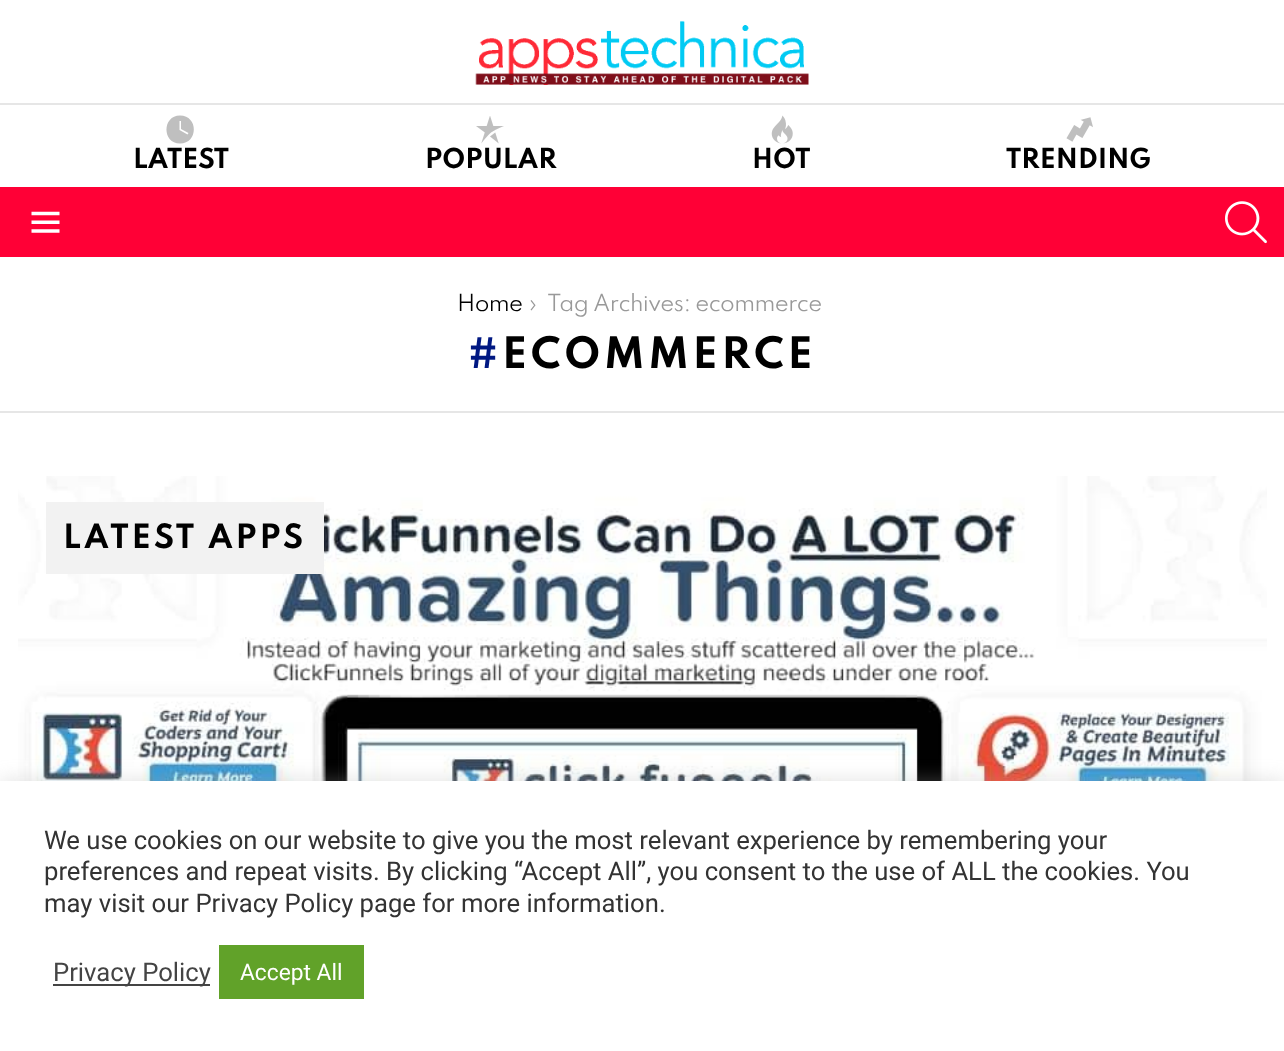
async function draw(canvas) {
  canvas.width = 1284;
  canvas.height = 1051;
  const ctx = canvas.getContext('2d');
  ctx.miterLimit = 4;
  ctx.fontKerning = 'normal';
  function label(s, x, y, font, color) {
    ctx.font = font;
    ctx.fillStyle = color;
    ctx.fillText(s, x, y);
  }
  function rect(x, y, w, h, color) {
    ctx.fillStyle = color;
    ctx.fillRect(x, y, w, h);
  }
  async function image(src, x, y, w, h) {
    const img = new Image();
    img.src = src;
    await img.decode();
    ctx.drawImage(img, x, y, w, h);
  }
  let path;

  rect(0, 0, 1284, 1051, '#fff');
  await image('assets/img1.png', 475, 20, 334, 65);
  rect(0, 103, 1284, 2, '#e6e6e6');
  ctx.fillStyle = '#bfbfbf';
  path = new Path2D('M180 115.5C162 115.5 162 143.5 180 143.5C198.5 143.5 198.5 115.5 180 115.5ZM187.5 134.5L179.5 130V121H181V129L188.5 133Z');
  ctx.fill(path);
  label('LATEST', 133, 168, 'bold 24.5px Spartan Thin', '#000');
  await image('assets/img2.png', 476, 116, 28, 28);
  label('POPULAR', 425, 168, 'bold 24.5px Spartan Thin', '#000');
  await image('assets/img3.png', 771, 115, 22, 29);
  label('HOT', 752, 168, 'bold 24.5px Spartan Thin', '#000');
  await image('assets/img4.png', 1066, 117, 27, 25);
  label('TRENDING', 1006, 168, 'bold 24.5px Spartan Thin', '#000');
  rect(0, 187, 1284, 70, '#ff0036');
  await image('assets/img5.png', 31, 211, 29, 22);
  await image('assets/img6.png', 1225, 201, 42, 43);
  ctx.letterSpacing = '-0.6px';
  label('Home', 457, 311, '21px Spartan Thin', '#000');
  label('›', 529, 311, '21px Spartan Thin', '#999');
  label('Tag Archives: ecommerce', 547, 311, '21px Spartan Thin', '#999');
  ctx.letterSpacing = '3.75px';
  label('#', 468, 368, 'bold 38.5px Spartan Thin', '#001882');
  label('ECOMMERCE', 502, 368, 'bold 38.5px Spartan Thin', '#000');
  rect(0, 411, 1284, 2, '#e6e6e6');
  await image('assets/img7.png', 18, 476, 1249, 305);
  rect(46, 502, 278, 72, '#f2f2f2');
  ctx.letterSpacing = '2.9px';
  label('LATEST APPS', 63, 548, 'bold 29.75px Spartan Thin', '#000');
  ctx.fillStyle = '#acabab4d';
  ctx.filter = 'blur(9px)';
  ctx.beginPath();
  ctx.rect(0, 779, 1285, 271);
  ctx.fill();
  ctx.filter = 'none';
  rect(0, 781, 1284, 270, '#fff');
  ctx.letterSpacing = '0px';
  label('We use cookies on our website to give you the most relevant experience by remembering your', 44, 849, '25.65px Roboto', '#333');
  label('preferences and repeat visits. By clicking “Accept All”, you consent to the use of ALL the cookies. You', 44, 880, '25.65px Roboto', '#333');
  label('may visit our Privacy Policy page for more information.', 44, 912, '25.65px Roboto', '#333');
  rect(53, 984, 157, 2, '#444');
  label('Privacy Policy', 53, 981, '25.65px Roboto', '#444');
  rect(219, 945, 145, 54, '#61a229');
  label('Accept All', 240, 980, '22.75px Roboto', '#fff');
}

draw(document.querySelector('canvas'));
